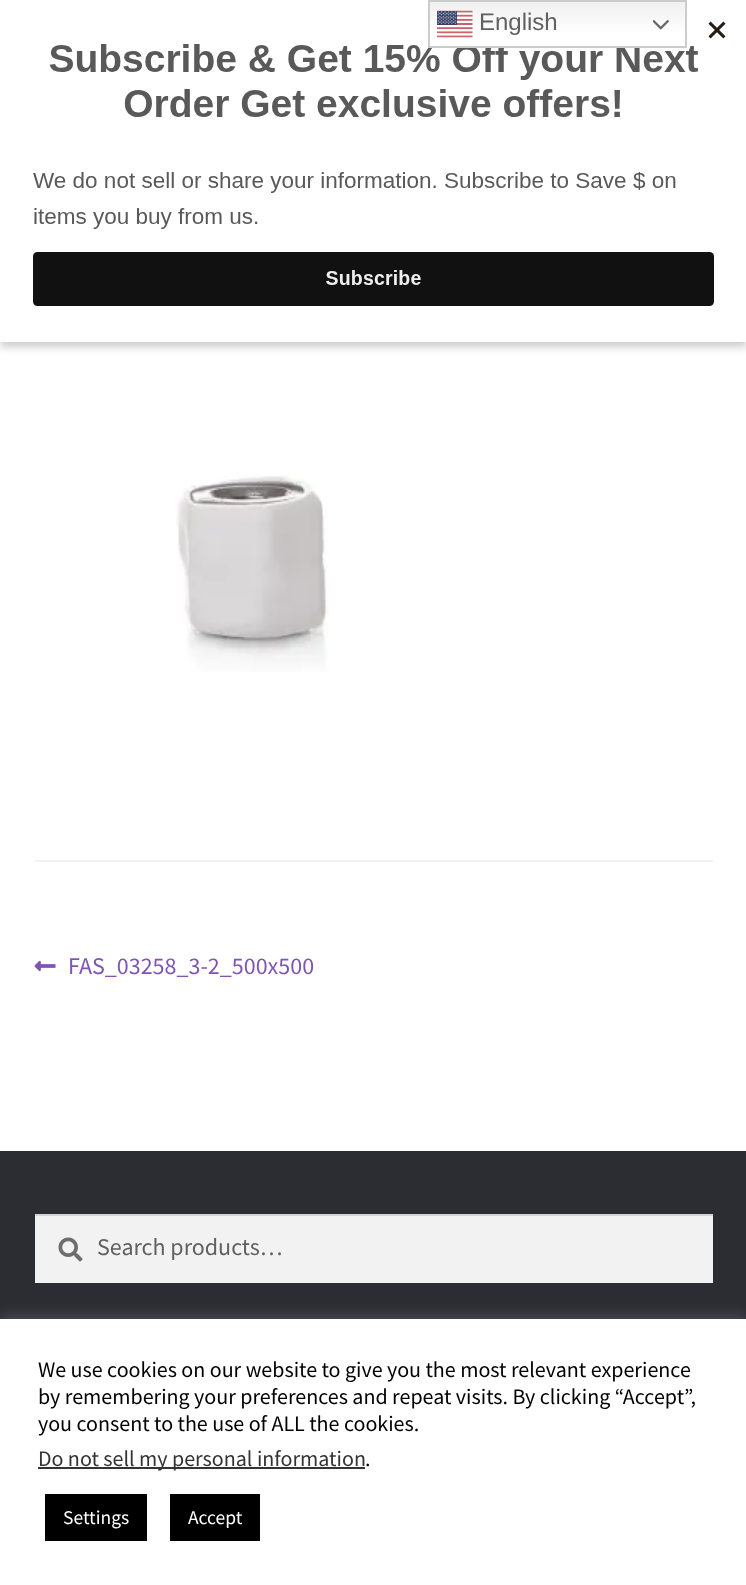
async function draw(canvas) {
  canvas.width = 746;
  canvas.height = 1585;
  const ctx = canvas.getContext('2d');
  ctx.miterLimit = 4;
  ctx.fontKerning = 'normal';
  function label(s, x, y, font, color) {
    ctx.font = font;
    ctx.fillStyle = color;
    ctx.fillText(s, x, y);
  }
  function rect(x, y, w, h, color) {
    ctx.fillStyle = color;
    ctx.fillRect(x, y, w, h);
  }
  async function image(src, x, y, w, h) {
    const img = new Image();
    img.src = src;
    await img.decode();
    ctx.drawImage(img, x, y, w, h);
  }
  let gradient;

  rect(0, 0, 746, 1585, '#fff');
  ctx.fillStyle = '#00000033';
  ctx.filter = 'blur(4.5px)';
  ctx.beginPath();
  ctx.rect(0, 5, 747, 342);
  ctx.fill();
  ctx.filter = 'none';
  rect(0, 0, 746, 342, '#fff');
  await image('assets/img1.png', 33, 21, 693, 285);
  gradient = ctx.createLinearGradient(557, 0, 557, 48);
  gradient.addColorStop(0, '#efefef');
  gradient.addColorStop(0.7, '#fff');
  ctx.fillStyle = gradient;
  ctx.fillRect(430, 2, 255, 44);
  ctx.strokeStyle = '#ccc';
  ctx.lineWidth = 2;
  ctx.strokeRect(429, 1, 257, 46);
  await image('assets/img2.png', 437, 10, 36, 28);
  label('English', 479, 30, '24px Liberation Sans', '#616161');
  await image('assets/img3.png', 653, 20, 16, 10);
  await image('assets/img4.png', 176, 474, 153, 198);
  rect(35, 860, 678, 2, '#f2f2f2');
  await image('assets/img5.png', 34, 960, 22, 12);
  label('FAS_03258_3-2_500x500', 68, 974, '24px Source Sans Pro', '#7f54b3');
  rect(0, 1151, 746, 168, '#2c2d33');
  rect(35, 1216, 678, 67, '#f2f2f2');
  await image('assets/img6.png', 58, 1237, 25, 25);
  rect(35, 1214, 678, 2, '#d4d4d4');
  label('Search products…', 97, 1255, '24px Source Sans Pro', '#616161');
  ctx.fillStyle = '#acabab4d';
  ctx.filter = 'blur(7.5px)';
  ctx.beginPath();
  ctx.rect(0, 1317, 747, 267);
  ctx.fill();
  ctx.filter = 'none';
  rect(0, 1319, 746, 266, '#fff');
  label('We use cookies on our website to give you the most relevant experience', 38, 1377, '22px Source Sans Pro', '#000');
  label('by remembering your preferences and repeat visits. By clicking “Accept”,', 38, 1404, '22px Source Sans Pro', '#000');
  label('you consent to the use of ALL the cookies.', 38, 1431, '22px Source Sans Pro', '#000');
  rect(38, 1467, 327, 2, '#333');
  label('Do not sell my personal information', 38, 1466, '22px Source Sans Pro', '#333');
  label('.', 365, 1466, '22px Source Sans Pro', '#000');
  rect(45, 1494, 102, 47, '#000');
  label('Settings', 63, 1524, '19.5px Source Sans Pro', '#fff');
  rect(170, 1494, 90, 47, '#000');
  label('Accept', 188, 1524, '19.5px Source Sans Pro', '#fff');
}

draw(document.querySelector('canvas'));
